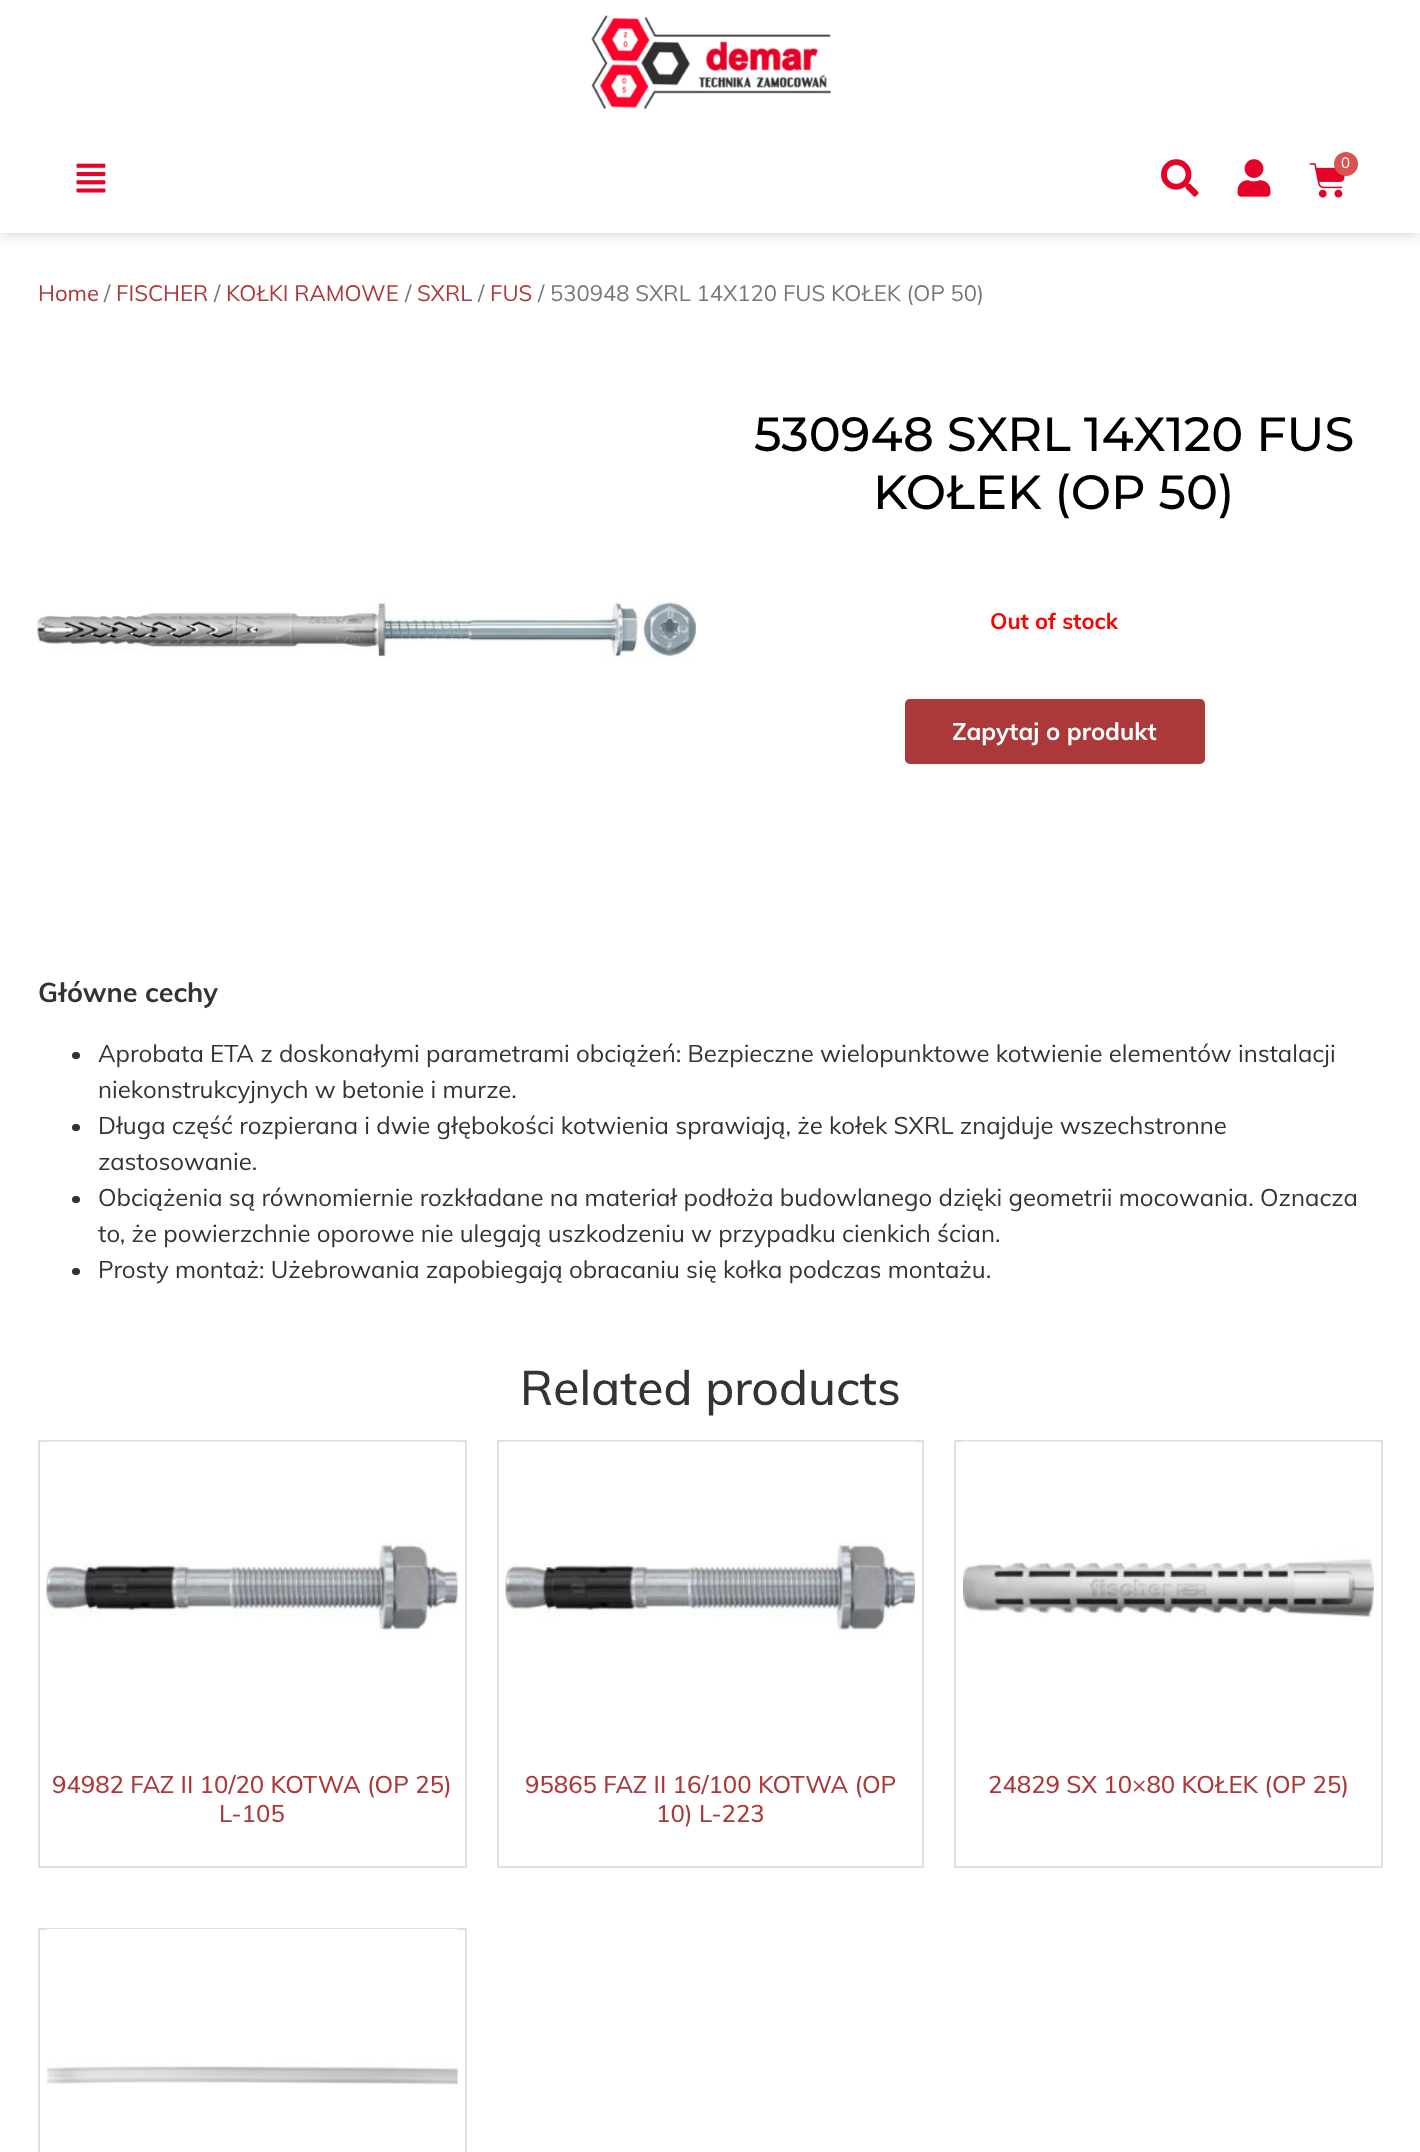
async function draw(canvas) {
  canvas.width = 1420;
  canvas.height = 2152;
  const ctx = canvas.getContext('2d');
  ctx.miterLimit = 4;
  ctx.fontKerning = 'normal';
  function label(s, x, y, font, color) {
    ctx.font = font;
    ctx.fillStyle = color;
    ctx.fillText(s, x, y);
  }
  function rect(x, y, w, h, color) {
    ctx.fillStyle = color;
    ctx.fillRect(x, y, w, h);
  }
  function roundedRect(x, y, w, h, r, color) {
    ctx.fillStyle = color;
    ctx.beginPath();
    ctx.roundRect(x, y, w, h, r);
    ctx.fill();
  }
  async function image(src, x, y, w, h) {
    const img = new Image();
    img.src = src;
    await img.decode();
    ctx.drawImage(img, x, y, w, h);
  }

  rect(0, 0, 1420, 2152, '#fff');
  ctx.fillStyle = '#00000033';
  ctx.filter = 'blur(7.5px)';
  ctx.beginPath();
  ctx.rect(0, 0, 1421, 233);
  ctx.fill();
  ctx.filter = 'none';
  rect(0, 0, 1420, 233, '#fff');
  await image('assets/img1.png', 591, 15, 240, 95);
  await image('assets/img2.png', 76, 163, 30, 30);
  await image('assets/img3.png', 1161, 159, 38, 38);
  await image('assets/img4.png', 1237, 159, 34, 38);
  await image('assets/img5.png', 1309, 163, 36, 35);
  ctx.fillStyle = '#d9534f';
  ctx.beginPath();
  ctx.arc(1346, 164, 12, 0, 2 * Math.PI);
  ctx.fill();
  label('0', 1341, 168, '15px Muli', '#fff');
  label('Home', 38, 301, '22.1px Muli', '#ac3939');
  label('/', 104, 301, '22.1px Muli', '#767676');
  label('FISCHER', 116, 301, '22.1px Muli', '#ac3939');
  label('/', 214, 301, '22.1px Muli', '#767676');
  label('KOŁKI RAMOWE', 226, 301, '22.1px Muli', '#ac3939');
  label('/', 405, 301, '22.1px Muli', '#767676');
  label('SXRL', 417, 301, '22.1px Muli', '#ac3939');
  label('/', 478, 301, '22.1px Muli', '#767676');
  label('FUS', 490, 301, '22.1px Muli', '#ac3939');
  label('/ 530948 SXRL 14X120 FUS KOŁEK (OP 50)', 538, 301, '22.1px Muli', '#767676');
  await image('assets/img6.png', 37, 599, 659, 61);
  label('530948 SXRL 14X120 FUS', 754, 451, '500 48px Montserrat', '#000');
  label('KOŁEK (OP 50)', 873, 509, '500 48px Montserrat', '#000');
  label('Out of stock', 990, 629, 'bold 22.1px Muli', '#f00');
  roundedRect(905, 699, 300, 65, 5, '#ac3939');
  label('Zapytaj o produkt', 952, 740, 'bold 24px Muli', '#fff');
  label('Główne cechy', 38, 1002, 'bold 27px Muli', '#333');
  roundedRect(72, 1052, 8, 7, 3.5, '#333');
  label('Aprobata ETA z doskonałymi parametrami obciążeń: Bezpieczne wielopunktowe kotwienie elementów instalacji', 98, 1062, '24px Muli', '#333');
  label('niekonstrukcyjnych w betonie i murze.', 98, 1098, '24px Muli', '#333');
  roundedRect(72, 1124, 8, 7, 3.5, '#333');
  label('Długa część rozpierana i dwie głębokości kotwienia sprawiają, że kołek SXRL znajduje wszechstronne', 98, 1134, '24px Muli', '#333');
  label('zastosowanie.', 98, 1170, '24px Muli', '#333');
  roundedRect(72, 1196, 8, 7, 3.5, '#333');
  label('Obciążenia są równomiernie rozkładane na materiał podłoża budowlanego dzięki geometrii mocowania. Oznacza', 98, 1206, '24px Muli', '#333');
  label('to, że powierzchnie oporowe nie ulegają uszkodzeniu w przypadku cienkich ścian.', 98, 1242, '24px Muli', '#333');
  roundedRect(72, 1268, 8, 7, 3.5, '#333');
  label('Prosty montaż: Użebrowania zapobiegają obracaniu się kołka podczas montażu.', 98, 1278, '24px Muli', '#333');
  label('Related products', 520, 1405, '500 48px Muli', '#333');
  ctx.strokeStyle = '#e0e0e0';
  ctx.lineWidth = 2;
  ctx.strokeRect(39, 1441, 427, 426);
  await image('assets/img7.png', 46, 1441, 412, 197);
  label('94982 FAZ II 10/20 KOTWA (OP 25)', 52, 1793, '500 24px Muli', '#ac3939');
  label('L-105', 219, 1822, '500 24px Muli', '#ac3939');
  ctx.strokeRect(498, 1441, 425, 426);
  await image('assets/img8.png', 505, 1441, 410, 197);
  label('95865 FAZ II 16/100 KOTWA (OP', 525, 1793, '500 24px Muli', '#ac3939');
  label('10) L-223', 656, 1822, '500 24px Muli', '#ac3939');
  ctx.strokeRect(955, 1441, 427, 426);
  await image('assets/img9.png', 963, 1441, 411, 176);
  label('24829 SX 10×80 KOŁEK (OP 25)', 988, 1793, '500 24px Muli', '#ac3939');
  ctx.strokeRect(39, 1929, 427, 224);
  await image('assets/img10.png', 46, 1929, 412, 156);
}

draw(document.querySelector('canvas'));
